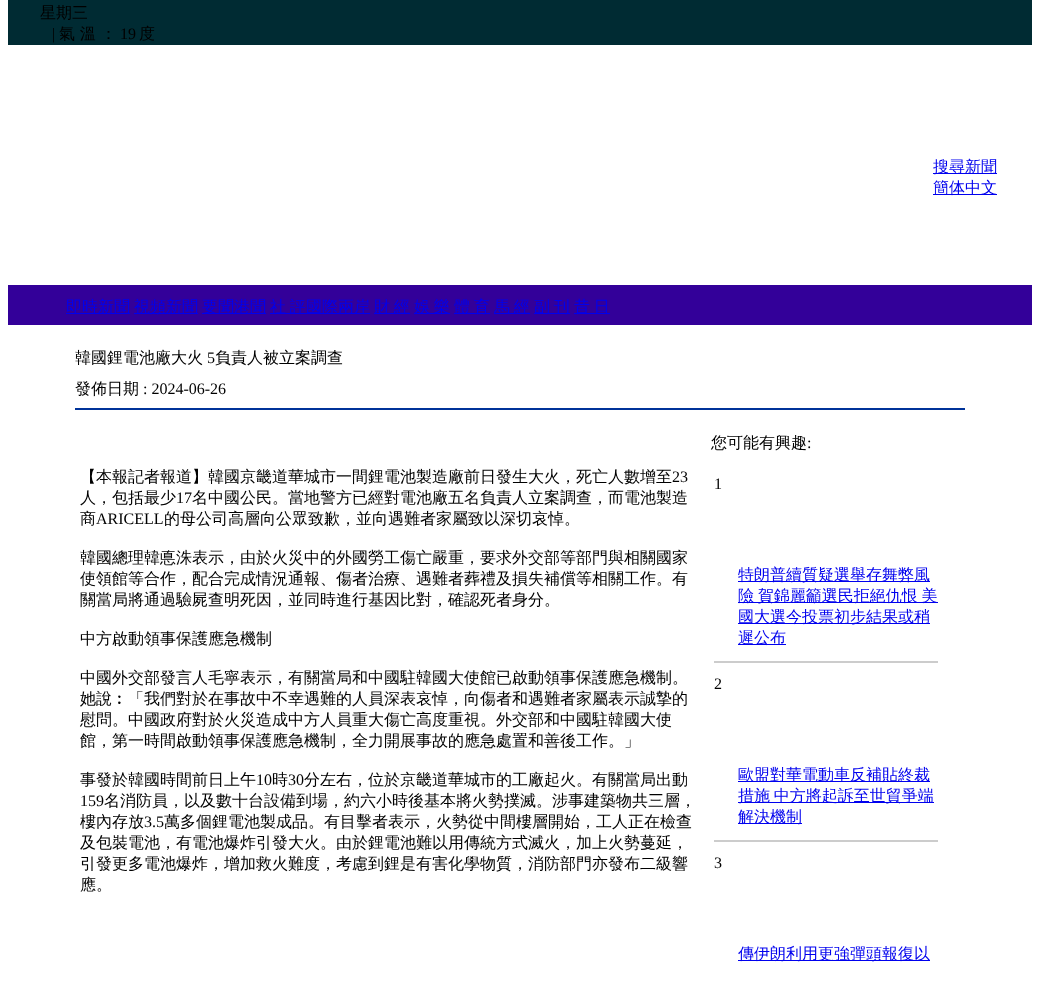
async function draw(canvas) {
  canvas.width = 1040;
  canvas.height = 988;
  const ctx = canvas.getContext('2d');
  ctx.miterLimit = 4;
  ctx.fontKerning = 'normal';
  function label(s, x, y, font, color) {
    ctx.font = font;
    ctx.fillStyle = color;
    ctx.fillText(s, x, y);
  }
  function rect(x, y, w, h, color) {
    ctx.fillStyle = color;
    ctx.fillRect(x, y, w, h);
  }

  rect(0, 0, 1040, 988, '#fff');
  rect(8, 0, 1024, 45, '#002b33');
  label('星期三', 40, 18, '500 16px WenQuanYi Zen Hei', '#000');
  label('|', 52, 39, '16px Liberation Serif', '#000');
  label('氣 溫 ：', 59, 39, '500 16px WenQuanYi Zen Hei', '#000');
  label('19', 120, 39, '16px Liberation Serif', '#000');
  label('度', 139, 39, '500 16px WenQuanYi Zen Hei', '#000');
  rect(933, 173, 64, 1, '#00e');
  label('搜尋新聞', 933, 172, '500 16px WenQuanYi Zen Hei', '#00e');
  rect(933, 194, 64, 1, '#00e');
  label('簡体中文', 933, 193, '500 16px WenQuanYi Zen Hei', '#00e');
  rect(8, 285, 1024, 40, '#309');
  rect(66, 313, 64, 1, '#00e');
  label('即時新聞', 66, 312, '500 16px WenQuanYi Zen Hei', '#00e');
  rect(134, 313, 64, 1, '#00e');
  label('視頻新聞', 134, 312, '500 16px WenQuanYi Zen Hei', '#00e');
  rect(202, 313, 64, 1, '#00e');
  label('要聞港聞', 202, 312, '500 16px WenQuanYi Zen Hei', '#00e');
  rect(270, 313, 100, 1, '#00e');
  ctx.wordSpacing = '-1px';
  label('社 評', 270, 312, '500 16px WenQuanYi Zen Hei', '#00e');
  ctx.wordSpacing = '0px';
  label('國際兩岸', 306, 312, '500 16px WenQuanYi Zen Hei', '#00e');
  rect(374, 313, 36, 1, '#00e');
  ctx.wordSpacing = '-1px';
  label('財 經', 374, 312, '500 16px WenQuanYi Zen Hei', '#00e');
  rect(414, 313, 36, 1, '#00e');
  label('娛 樂', 414, 312, '500 16px WenQuanYi Zen Hei', '#00e');
  rect(454, 313, 36, 1, '#00e');
  label('體 育', 454, 312, '500 16px WenQuanYi Zen Hei', '#00e');
  rect(494, 313, 36, 1, '#00e');
  label('馬 經', 494, 312, '500 16px WenQuanYi Zen Hei', '#00e');
  rect(534, 313, 36, 1, '#00e');
  label('副 刊', 534, 312, '500 16px WenQuanYi Zen Hei', '#00e');
  rect(574, 313, 36, 1, '#00e');
  label('昔 日', 574, 312, '500 16px WenQuanYi Zen Hei', '#00e');
  ctx.wordSpacing = '0px';
  label('韓國鋰電池廠大火', 75, 363, '500 16px WenQuanYi Zen Hei', '#000');
  label('5', 207, 363, '16px Liberation Serif', '#000');
  label('負責人被立案調查', 215, 363, '500 16px WenQuanYi Zen Hei', '#000');
  label('發佈日期', 75, 394, '500 16px WenQuanYi Zen Hei', '#000');
  label(': 2024-06-26', 143, 394, '16px Liberation Serif', '#000');
  rect(75, 408, 890, 2, '#039');
  label('【本報記者報道】韓國京畿道華城市一間鋰電池製造廠前日發生大火，死亡人數增至', 80, 482, '500 16px WenQuanYi Zen Hei', '#000');
  label('23', 672, 482, '16px Liberation Serif', '#000');
  label('人，包括最少', 80, 503, '500 16px WenQuanYi Zen Hei', '#000');
  label('17', 176, 503, '16px Liberation Serif', '#000');
  label('名中國公民。當地警方已經對電池廠五名負責人立案調查，而電池製造', 192, 503, '500 16px WenQuanYi Zen Hei', '#000');
  label('商', 80, 524, '500 16px WenQuanYi Zen Hei', '#000');
  label('ARICELL', 96, 524, '16px Liberation Serif', '#000');
  label('的母公司高層向公眾致歉，並向遇難者家屬致以深切哀悼。', 164, 524, '500 16px WenQuanYi Zen Hei', '#000');
  label('韓國總理韓悳洙表示，由於火災中的外國勞工傷亡嚴重，要求外交部等部門與相關國家', 80, 563, '500 16px WenQuanYi Zen Hei', '#000');
  label('使領館等合作，配合完成情況通報、傷者治療、遇難者葬禮及損失補償等相關工作。有', 80, 584, '500 16px WenQuanYi Zen Hei', '#000');
  label('關當局將通過驗屍查明死因，並同時進行基因比對，確認死者身分。', 80, 605, '500 16px WenQuanYi Zen Hei', '#000');
  label('中方啟動領事保護應急機制', 80, 644, '500 16px WenQuanYi Zen Hei', '#000');
  label('中國外交部發言人毛寧表示，有關當局和中國駐韓國大使館已啟動領事保護應急機制。', 80, 683, '500 16px WenQuanYi Zen Hei', '#000');
  label('她說︰「我們對於在事故中不幸遇難的人員深表哀悼，向傷者和遇難者家屬表示誠摯的', 80, 704, '500 16px WenQuanYi Zen Hei', '#000');
  label('慰問。中國政府對於火災造成中方人員重大傷亡高度重視。外交部和中國駐韓國大使', 80, 725, '500 16px WenQuanYi Zen Hei', '#000');
  label('館，第一時間啟動領事保護應急機制，全力開展事故的應急處置和善後工作。」', 80, 746, '500 16px WenQuanYi Zen Hei', '#000');
  label('事發於韓國時間前日上午', 80, 785, '500 16px WenQuanYi Zen Hei', '#000');
  label('10', 256, 785, '16px Liberation Serif', '#000');
  label('時', 272, 785, '500 16px WenQuanYi Zen Hei', '#000');
  label('30', 288, 785, '16px Liberation Serif', '#000');
  label('分左右，位於京畿道華城市的工廠起火。有關當局出動', 304, 785, '500 16px WenQuanYi Zen Hei', '#000');
  label('159', 80, 806, '16px Liberation Serif', '#000');
  label('名消防員，以及數十台設備到場，約六小時後基本將火勢撲滅。涉事建築物共三層，', 104, 806, '500 16px WenQuanYi Zen Hei', '#000');
  label('樓內存放', 80, 827, '500 16px WenQuanYi Zen Hei', '#000');
  label('3.5', 144, 827, '16px Liberation Serif', '#000');
  label('萬多個鋰電池製成品。有目擊者表示，火勢從中間樓層開始，工人正在檢查', 164, 827, '500 16px WenQuanYi Zen Hei', '#000');
  label('及包裝電池，有電池爆炸引發大火。由於鋰電池難以用傳統方式滅火，加上火勢蔓延，', 80, 848, '500 16px WenQuanYi Zen Hei', '#000');
  label('引發更多電池爆炸，增加救火難度，考慮到鋰是有害化學物質，消防部門亦發布二級響', 80, 869, '500 16px WenQuanYi Zen Hei', '#000');
  label('應。', 80, 890, '500 16px WenQuanYi Zen Hei', '#000');
  label('您可能有興趣', 711, 448, '500 16px WenQuanYi Zen Hei', '#000');
  label(':', 807, 448, '16px Liberation Serif', '#000');
  label('1', 714, 489, '16px Liberation Serif', '#000');
  rect(738, 581, 192, 1, '#00e');
  label('特朗普續質疑選舉存舞弊風', 738, 580, '500 16px WenQuanYi Zen Hei', '#00e');
  rect(738, 602, 200, 1, '#00e');
  ctx.wordSpacing = '-1px';
  label('險 賀錦麗籲選民拒絕仇恨 美', 738, 601, '500 16px WenQuanYi Zen Hei', '#00e');
  rect(738, 623, 192, 1, '#00e');
  ctx.wordSpacing = '0px';
  label('國大選今投票初步結果或稍', 738, 622, '500 16px WenQuanYi Zen Hei', '#00e');
  rect(738, 644, 48, 1, '#00e');
  label('遲公布', 738, 643, '500 16px WenQuanYi Zen Hei', '#00e');
  rect(714, 661, 224, 2, '#ccc');
  label('2', 714, 689, '16px Liberation Serif', '#000');
  rect(738, 781, 192, 1, '#00e');
  label('歐盟對華電動車反補貼終裁', 738, 780, '500 16px WenQuanYi Zen Hei', '#00e');
  rect(738, 802, 196, 1, '#00e');
  ctx.wordSpacing = '-1px';
  label('措施 中方將起訴至世貿爭端', 738, 801, '500 16px WenQuanYi Zen Hei', '#00e');
  rect(738, 823, 64, 1, '#00e');
  ctx.wordSpacing = '0px';
  label('解決機制', 738, 822, '500 16px WenQuanYi Zen Hei', '#00e');
  rect(714, 840, 224, 2, '#ccc');
  label('3', 714, 868, '16px Liberation Serif', '#000');
  rect(738, 960, 192, 1, '#00e');
  label('傳伊朗利用更強彈頭報復以', 738, 959, '500 16px WenQuanYi Zen Hei', '#00e');
}

draw(document.querySelector('canvas'));
